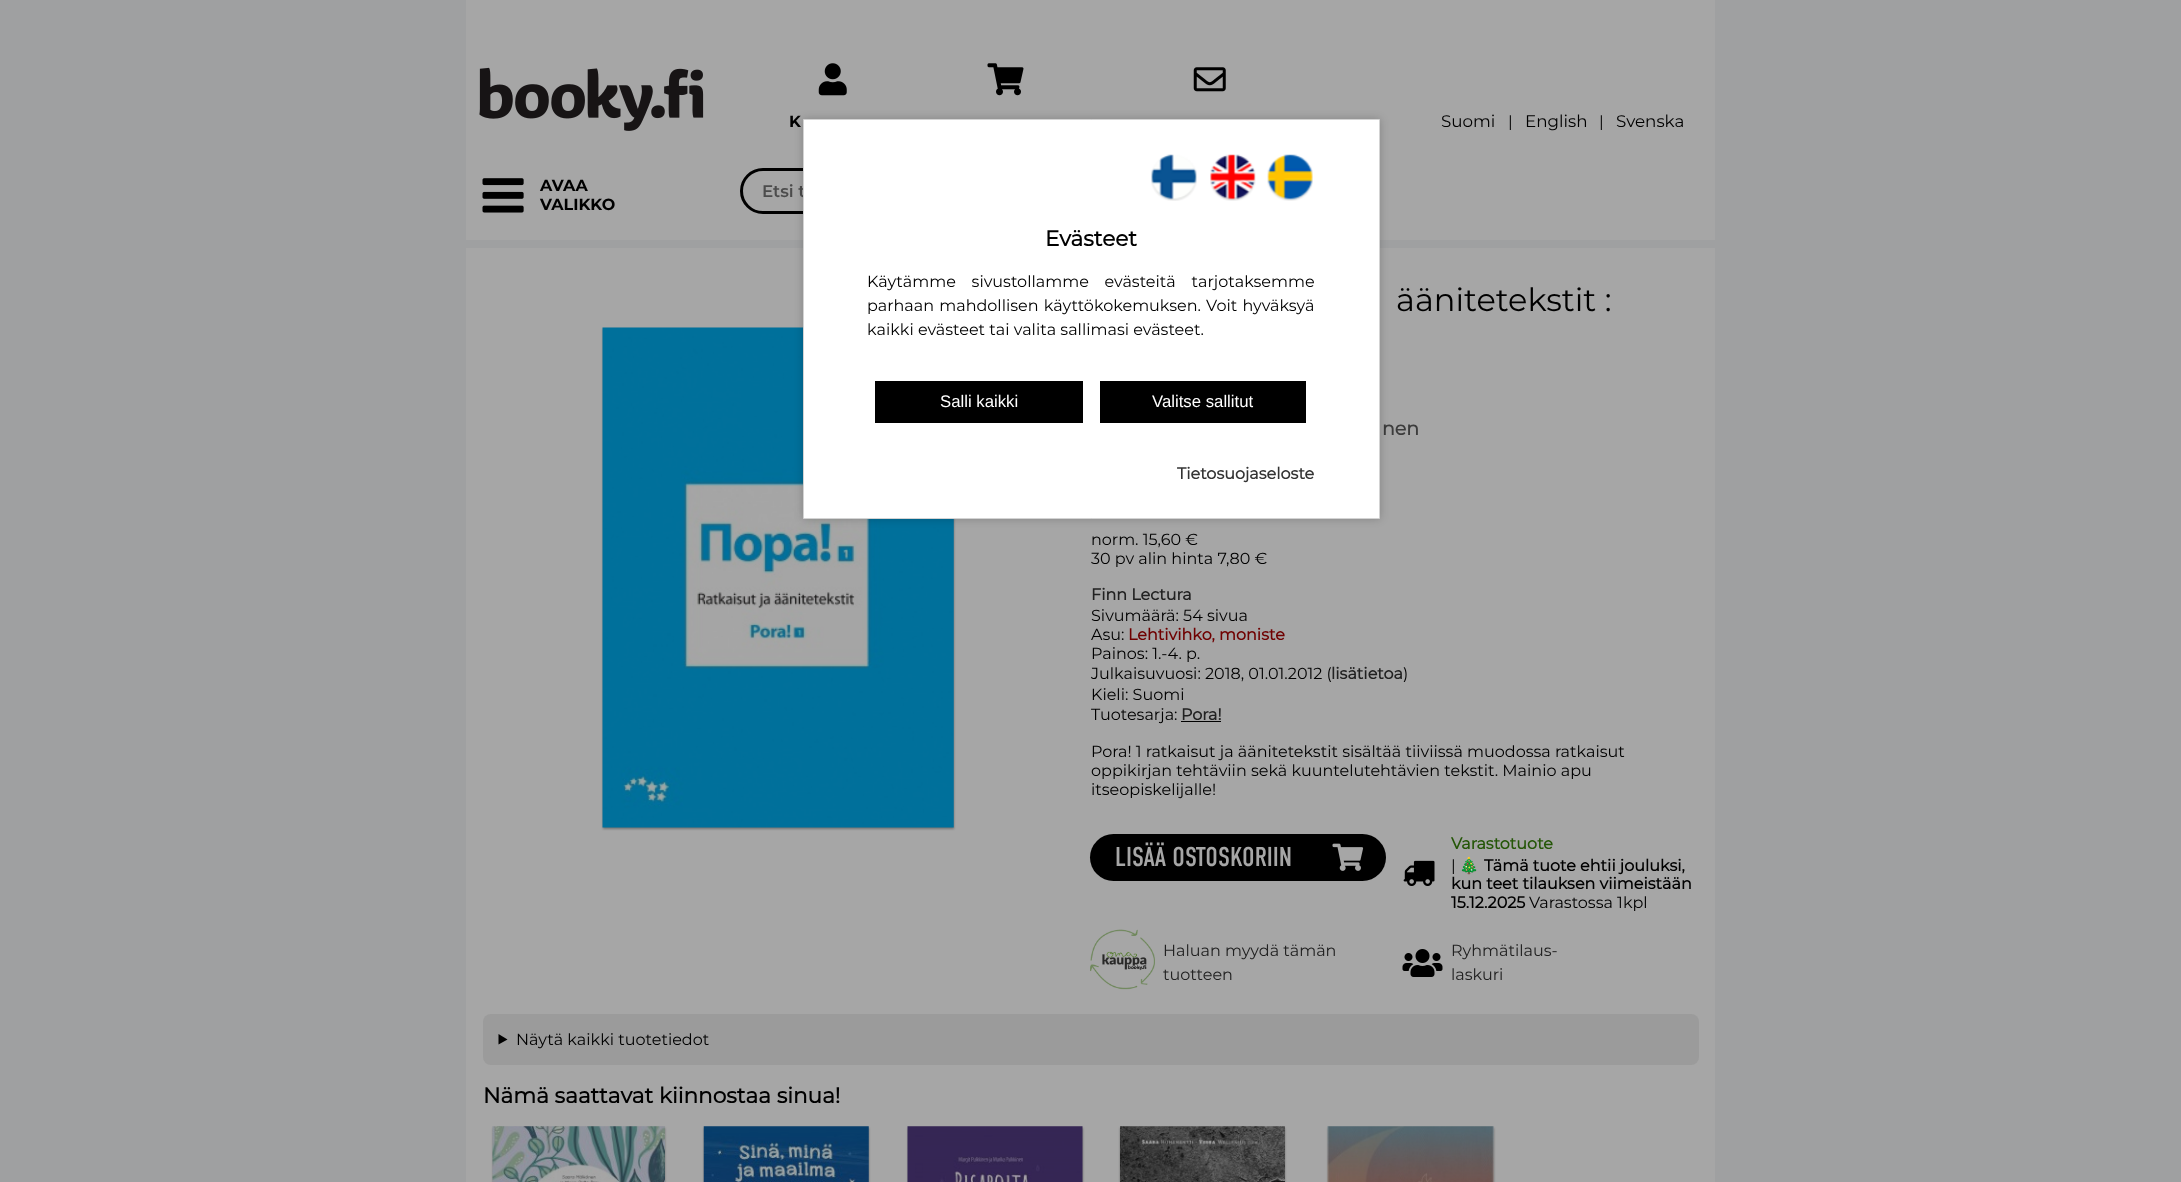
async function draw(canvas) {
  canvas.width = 2181;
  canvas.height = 1182;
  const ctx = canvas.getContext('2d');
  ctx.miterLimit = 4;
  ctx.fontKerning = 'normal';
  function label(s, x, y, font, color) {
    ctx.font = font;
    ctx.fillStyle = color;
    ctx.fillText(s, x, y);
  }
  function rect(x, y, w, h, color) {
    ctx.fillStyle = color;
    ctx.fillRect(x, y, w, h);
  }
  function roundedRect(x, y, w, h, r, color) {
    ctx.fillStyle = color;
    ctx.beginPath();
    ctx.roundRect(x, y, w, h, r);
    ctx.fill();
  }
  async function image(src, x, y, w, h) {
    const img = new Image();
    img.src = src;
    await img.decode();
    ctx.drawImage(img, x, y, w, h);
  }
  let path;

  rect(0, 0, 2181, 1182, '#9fa0a1');
  rect(466, 0, 1249, 160, '#a6a6a6');
  await image('assets/img1.png', 479, 67, 225, 64);
  await image('assets/img2.png', 987, 63, 37, 33);
  await image('assets/img3.png', 1193, 67, 33, 25);
  await image('assets/img4.png', 818, 63, 29, 33);
  label('K', 789, 127, 'bold 16px Montserrat', '#000');
  label('Suomi', 1441, 127, '16.75px Montserrat', '#000');
  label('|', 1508, 127, '16px Montserrat', '#000');
  label('English', 1525, 127, '16.75px Montserrat', '#000');
  label('|', 1599, 127, '16px Montserrat', '#000');
  label('Svenska', 1616, 127, '16.75px Montserrat', '#000');
  rect(466, 160, 1249, 80, '#a6a6a6');
  await image('assets/img5.png', 482, 178, 42, 35);
  label('AVAA', 540, 191, 'bold 16px Montserrat', '#000');
  label('VALIKKO', 540, 210, 'bold 16px Montserrat', '#000');
  ctx.beginPath();
  ctx.roundRect(741.5, 169.5, 636, 43, 21.5);
  ctx.strokeStyle = '#000';
  ctx.lineWidth = 3;
  ctx.stroke();
  label('Etsi t', 762, 197, '600 16.75px Montserrat', '#4c4c4c');
  rect(466, 248, 1249, 934, '#a6a6a6');
  ctx.fillStyle = '#0000004d';
  ctx.filter = 'blur(1px)';
  ctx.beginPath();
  ctx.rect(603, 329, 351, 500);
  ctx.fill();
  ctx.filter = 'none';
  await image('assets/img6.png', 602, 327, 352, 501);
  label('äänitetekstit :', 1396, 311, '32px Montserrat', '#000');
  label('nen', 1382, 435, 'bold 19px "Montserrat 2"', '#3c3c3c');
  label('norm. 15,60 €', 1091, 545, '16px Montserrat', '#000');
  label('30 pv alin hinta 7,80 €', 1091, 564, '16px Montserrat', '#000');
  label('Finn Lectura', 1091, 600, 'bold 16px "Montserrat 2"', '#212121');
  label('Sivumäärä: 54 sivua', 1091, 621, '16px Montserrat', '#000');
  label('Asu:', 1091, 640, '16px Montserrat', '#000');
  label('Lehtivihko, moniste', 1128, 640, 'bold 16px "Montserrat 2"', '#6f0000');
  label('Painos: 1.-4. p.', 1091, 659, '16px Montserrat', '#000');
  label('Julkaisuvuosi: 2018, 01.01.2012 (', 1091, 679, '16px Montserrat', '#000');
  label('lisätietoa', 1331, 679, 'bold 16px "Montserrat 2"', '#212121');
  label(')', 1403, 679, '16px Montserrat', '#000');
  label('Kieli: Suomi', 1091, 700, '16px Montserrat', '#000');
  label('Tuotesarja:', 1091, 720, '16px Montserrat', '#000');
  label('Pora!', 1181, 720, 'bold 16px "Montserrat 2"', '#212121');
  rect(1181, 721, 40, 1, '#000');
  label('Pora! 1 ratkaisut ja äänitetekstit sisältää tiiviissä muodossa ratkaisut', 1091, 757, '16px Montserrat', '#000');
  label('oppikirjan tehtäviin sekä kuuntelutehtävien tekstit. Mainio apu', 1091, 776, '16px Montserrat', '#000');
  label('itseopiskelijalle!', 1091, 795, '16px Montserrat', '#000');
  roundedRect(1090, 834, 296, 47, 23.5, '#000');
  label('LISÄÄ OSTOSKORIIN', 1115, 866, '27.25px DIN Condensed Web', '#a6a6a6');
  await image('assets/img7.png', 1332, 843, 32, 28);
  await image('assets/img8.png', 1403, 860, 32, 26);
  label('Varastotuote', 1451, 849, 'bold 16px "Montserrat 2"', '#245607');
  label('|', 1451, 871, '16px Montserrat', '#000');
  label('🎄', 1459, 871, '16px Noto Color Emoji', '#000');
  label('Tämä tuote ehtii jouluksi,', 1484, 871, 'bold 16px "Montserrat 2"', '#000');
  label('kun teet tilauksen viimeistään', 1451, 889, 'bold 16px "Montserrat 2"', '#000');
  label('15.12.2025', 1451, 908, 'bold 16px "Montserrat 2"', '#000');
  label('Varastossa 1kpl', 1529, 908, '16px Montserrat', '#000');
  await image('assets/img9.png', 1090, 929, 65, 61);
  label('Haluan myydä tämän', 1163, 956, '16px Montserrat', '#212121');
  label('tuotteen', 1163, 980, '16px Montserrat', '#212121');
  await image('assets/img10.png', 1402, 949, 41, 28);
  label('Ryhmätilaus-', 1451, 956, '16px Montserrat', '#212121');
  label('laskuri', 1451, 980, '16px Montserrat', '#212121');
  roundedRect(483, 1014, 1216, 51, 8, '#9b9b9b');
  ctx.fillStyle = '#000';
  path = new Path2D('M498.5 1034L507.5 1039.5L498.5 1044.5Z');
  ctx.fill(path);
  label('Näytä kaikki tuotetiedot', 516, 1045, '16px Montserrat', '#000');
  label('Nämä saattavat kiinnostaa sinua!', 483, 1103, 'bold 21.6px "Montserrat 2"', '#000');
  ctx.fillStyle = '#0000004d';
  ctx.filter = 'blur(1px)';
  ctx.beginPath();
  ctx.rect(493, 1128, 172, 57);
  ctx.fill();
  ctx.filter = 'none';
  await image('assets/img11.png', 492, 1126, 173, 56);
  ctx.filter = 'blur(1px)';
  ctx.beginPath();
  ctx.rect(704, 1128, 165, 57);
  ctx.fill();
  ctx.filter = 'none';
  await image('assets/img12.png', 703, 1126, 166, 56);
  ctx.filter = 'blur(1px)';
  ctx.beginPath();
  ctx.rect(908, 1128, 175, 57);
  ctx.fill();
  ctx.filter = 'none';
  await image('assets/img13.png', 907, 1126, 176, 56);
  ctx.filter = 'blur(1px)';
  ctx.beginPath();
  ctx.rect(1120, 1128, 165, 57);
  ctx.fill();
  ctx.filter = 'none';
  await image('assets/img14.png', 1120, 1126, 165, 56);
  ctx.filter = 'blur(1px)';
  ctx.beginPath();
  ctx.rect(1328, 1128, 166, 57);
  ctx.fill();
  ctx.filter = 'none';
  await image('assets/img15.png', 1327, 1126, 167, 56);
  ctx.fillStyle = '#00000033';
  ctx.filter = 'blur(4px)';
  ctx.beginPath();
  ctx.rect(803, 119, 577, 400);
  ctx.fill();
  ctx.filter = 'none';
  ctx.fillStyle = '#fff';
  ctx.beginPath();
  ctx.rect(803.5, 119.5, 576, 399);
  ctx.fill();
  ctx.strokeStyle = '#d3d3d3';
  ctx.lineWidth = 1;
  ctx.stroke();
  await image('assets/img16.png', 1151, 154, 46, 47);
  await image('assets/img17.png', 1210, 154, 46, 47);
  await image('assets/img18.png', 1267, 154, 46, 47);
  label('Evästeet', 1045, 246, 'bold 21.6px "Montserrat 2"', '#000');
  ctx.wordSpacing = '11.5px';
  label('Käytämme sivustollamme evästeitä tarjotaksemme', 867, 287, '16px Montserrat', '#000');
  ctx.wordSpacing = '1px';
  label('parhaan mahdollisen käyttökokemuksen. Voit hyväksyä', 867, 311, '16px Montserrat', '#000');
  ctx.wordSpacing = '0px';
  label('kaikki evästeet tai valita sallimasi evästeet.', 867, 335, '16px Montserrat', '#000');
  rect(875, 381, 208, 42, '#000');
  label('Salli kaikki', 940, 407, '16.75px Liberation Sans', '#fff');
  rect(1100, 381, 206, 42, '#000');
  label('Valitse sallitut', 1152, 407, '16.75px Liberation Sans', '#fff');
  label('Tietosuojaseloste', 1177, 479, 'bold 16px "Montserrat 2"', '#333');
}

draw(document.querySelector('canvas'));
